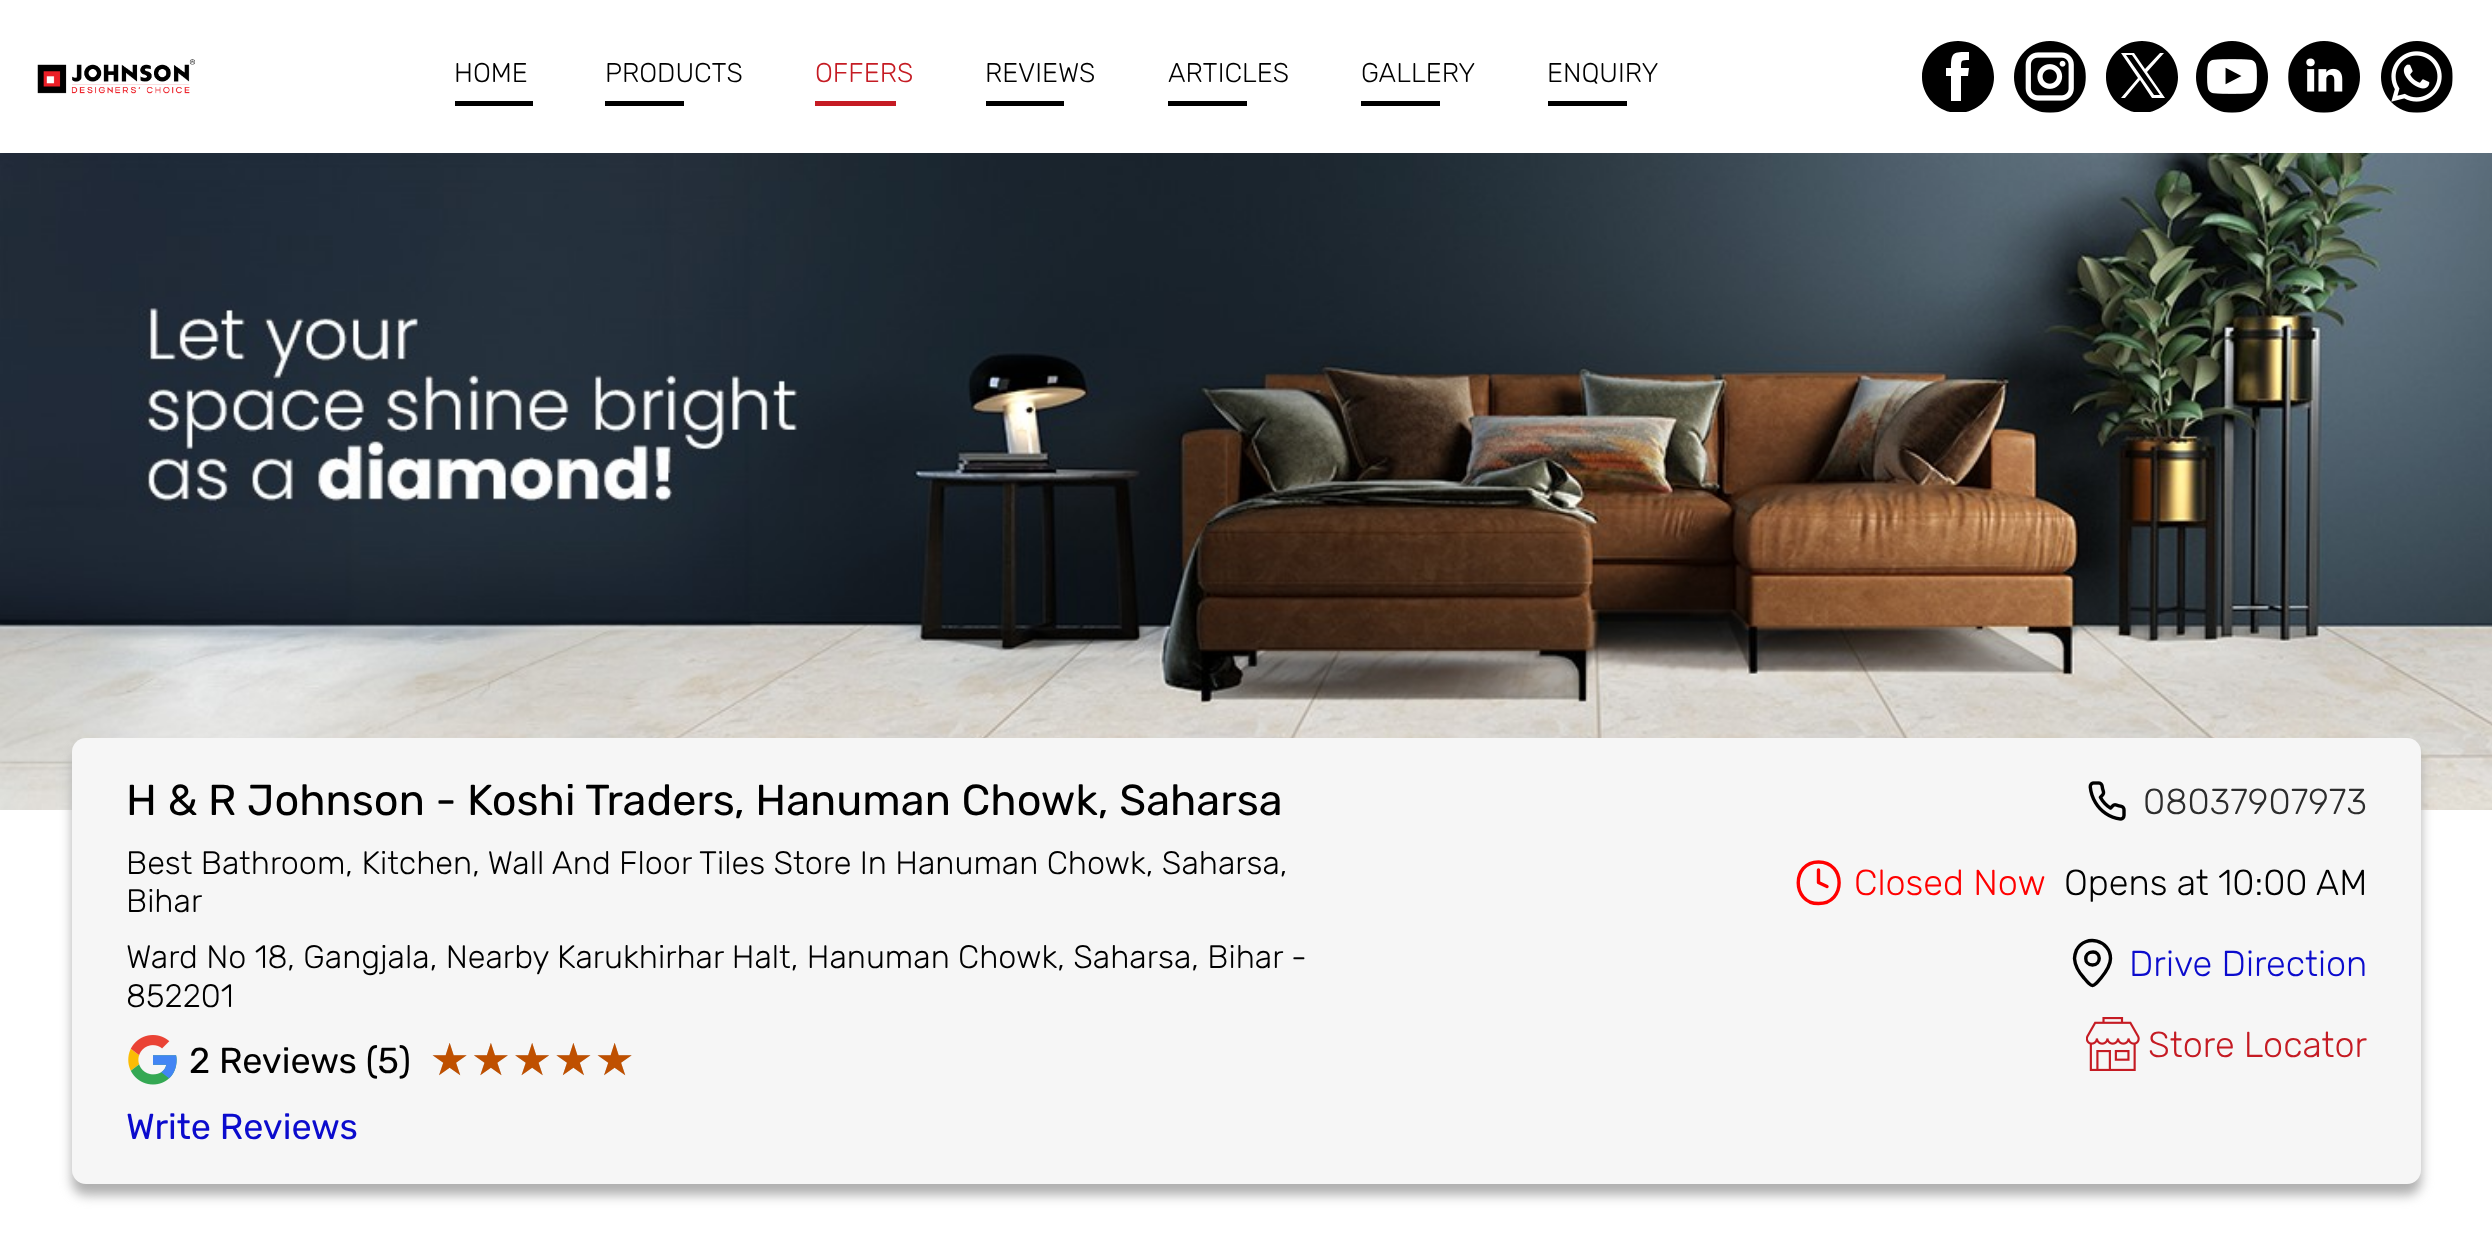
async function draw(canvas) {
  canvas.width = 2492;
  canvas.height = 1246;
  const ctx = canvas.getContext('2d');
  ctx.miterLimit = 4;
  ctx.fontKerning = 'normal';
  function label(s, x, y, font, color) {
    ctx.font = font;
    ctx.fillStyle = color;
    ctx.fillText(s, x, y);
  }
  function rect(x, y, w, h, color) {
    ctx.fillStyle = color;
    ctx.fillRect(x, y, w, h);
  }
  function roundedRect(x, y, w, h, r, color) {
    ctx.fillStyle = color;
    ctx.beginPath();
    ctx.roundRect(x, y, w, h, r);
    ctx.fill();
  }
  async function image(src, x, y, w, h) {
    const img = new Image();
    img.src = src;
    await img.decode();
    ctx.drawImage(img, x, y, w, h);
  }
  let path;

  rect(0, 0, 2492, 1246, '#fff');
  await image('assets/img1.png', 37, 59, 158, 35);
  label('HOME', 454, 82, '300 27px Rubik', '#000');
  rect(455, 101, 78, 5, '#000');
  label('PRODUCTS', 605, 82, '300 27px Rubik', '#000');
  rect(605, 101, 79, 5, '#000');
  label('OFFERS', 815, 82, '300 27px Rubik', '#c51b23');
  rect(815, 101, 81, 5, '#c51b23');
  label('REVIEWS', 985, 82, '300 27px Rubik', '#000');
  rect(986, 101, 78, 5, '#000');
  label('ARTICLES', 1168, 82, '300 27px Rubik', '#000');
  rect(1168, 101, 79, 5, '#000');
  label('GALLERY', 1361, 82, '300 27px Rubik', '#000');
  rect(1361, 101, 79, 5, '#000');
  label('ENQUIRY', 1547, 82, '300 27px Rubik', '#000');
  rect(1548, 101, 79, 5, '#000');
  path = new Path2D('M1958 41C1938 41 1922 57 1922 77C1922 94 1934 108 1950 112H1966C1982 108 1994 94 1994 77C1994 57 1978 41 1958 41ZM1969 60V52C1953 52 1951 52 1951 68H1946V76H1951V101H1961V76H1968L1969 68H1961C1961 60 1961 60 1969 60Z');
  ctx.fill(path, 'evenodd');
  await image('assets/img2.png', 2014, 41, 72, 72);
  path = new Path2D('M2142 41C2122 41 2106 57 2106 77C2106 94 2118 108 2134 112H2150C2166 108 2178 94 2178 77C2178 57 2162 41 2142 41ZM2164 53H2160L2145 69L2134 53H2121L2138 78L2121 98H2125L2140 80L2152 98H2165L2147 72ZM2154 95L2126 55H2132L2160 95Z');
  ctx.fill(path, 'evenodd');
  await image('assets/img3.png', 2196, 41, 72, 72);
  await image('assets/img4.png', 2288, 41, 72, 72);
  await image('assets/img5.png', 2381, 41, 72, 72);
  await image('assets/img6.png', 0, 153, 2492, 657);
  ctx.fillStyle = '#afafaf';
  ctx.filter = 'blur(6px)';
  ctx.beginPath();
  ctx.roundRect(72, 749, 2349, 446, 14);
  ctx.fill();
  ctx.filter = 'none';
  roundedRect(72, 738, 2349, 446, 14, '#f6f6f6');
  label('H & R Johnson - Koshi Traders', 126, 815, '43.25px Rubik', '#000');
  label(', Hanuman Chowk, Saharsa', 734, 815, '43.25px Rubik', '#000');
  label('Best Bathroom, Kitchen, Wall And Floor Tiles Store In Hanuman Chowk, Saharsa,', 126, 874, '300 32.4px Rubik', '#000');
  label('Bihar', 126, 912, '300 32.4px Rubik', '#000');
  label('Ward No 18, Gangjala, Nearby Karukhirhar Halt, Hanuman Chowk, Saharsa, Bihar -', 126, 968, '300 32.4px Rubik', '#000');
  label('852201', 126, 1007, '300 32.4px Rubik', '#000');
  await image('assets/img7.png', 128, 1035, 49, 50);
  label('2 Reviews (5)', 189, 1073, '36px Rubik', '#000');
  label('★★★★★', 429, 1075, '39.5px Inter', '#ccc');
  label('★★★★★', 429, 1075, '39.5px Inter', '#bf5000');
  label('Write Reviews', 126, 1139, '36px Rubik', '#0b0bcd');
  await image('assets/img8.png', 2088, 781, 38, 40);
  label('08037907973', 2143, 814, '300 36px Rubik', '#2d2d2d');
  path = new Path2D('M1818.5 903.5C1846 903.5 1846 862 1818.5 862C1791.5 862 1791.5 903.5 1818.5 903.5ZM1818.5 870V882.5L1827 886.5');
  ctx.strokeStyle = '#f00';
  ctx.lineWidth = 3.4;
  ctx.lineCap = 'round';
  ctx.lineJoin = 'round';
  ctx.stroke(path);
  label('Closed Now', 1854, 895, '300 36px Rubik', '#f00');
  label('Opens at 10:00 AM', 2064, 895, '300 36px Rubik', '#000');
  path = new Path2D('M2110.5 958.5C2110.5 966 2105.5 972.5 2101 978C2092.5 988 2092.5 988 2084 978C2079 972.5 2075 966 2074.5 958.5C2074.5 955.5 2075.5 952.5 2076.5 950C2085.5 933.5 2110.5 940 2110.5 958.5ZM2092.5 965C2101.5 965 2101.5 951.5 2092.5 952C2083.5 952 2083.5 965 2092.5 965Z');
  ctx.strokeStyle = '#000';
  ctx.stroke(path);
  label('Drive Direction', 2129, 976, '300 36px Rubik', '#0b0bcd');
  await image('assets/img9.png', 2086, 1017, 54, 54);
  label('Store Locator', 2148, 1057, '300 36px Rubik', '#c51b23');
}

draw(document.querySelector('canvas'));
